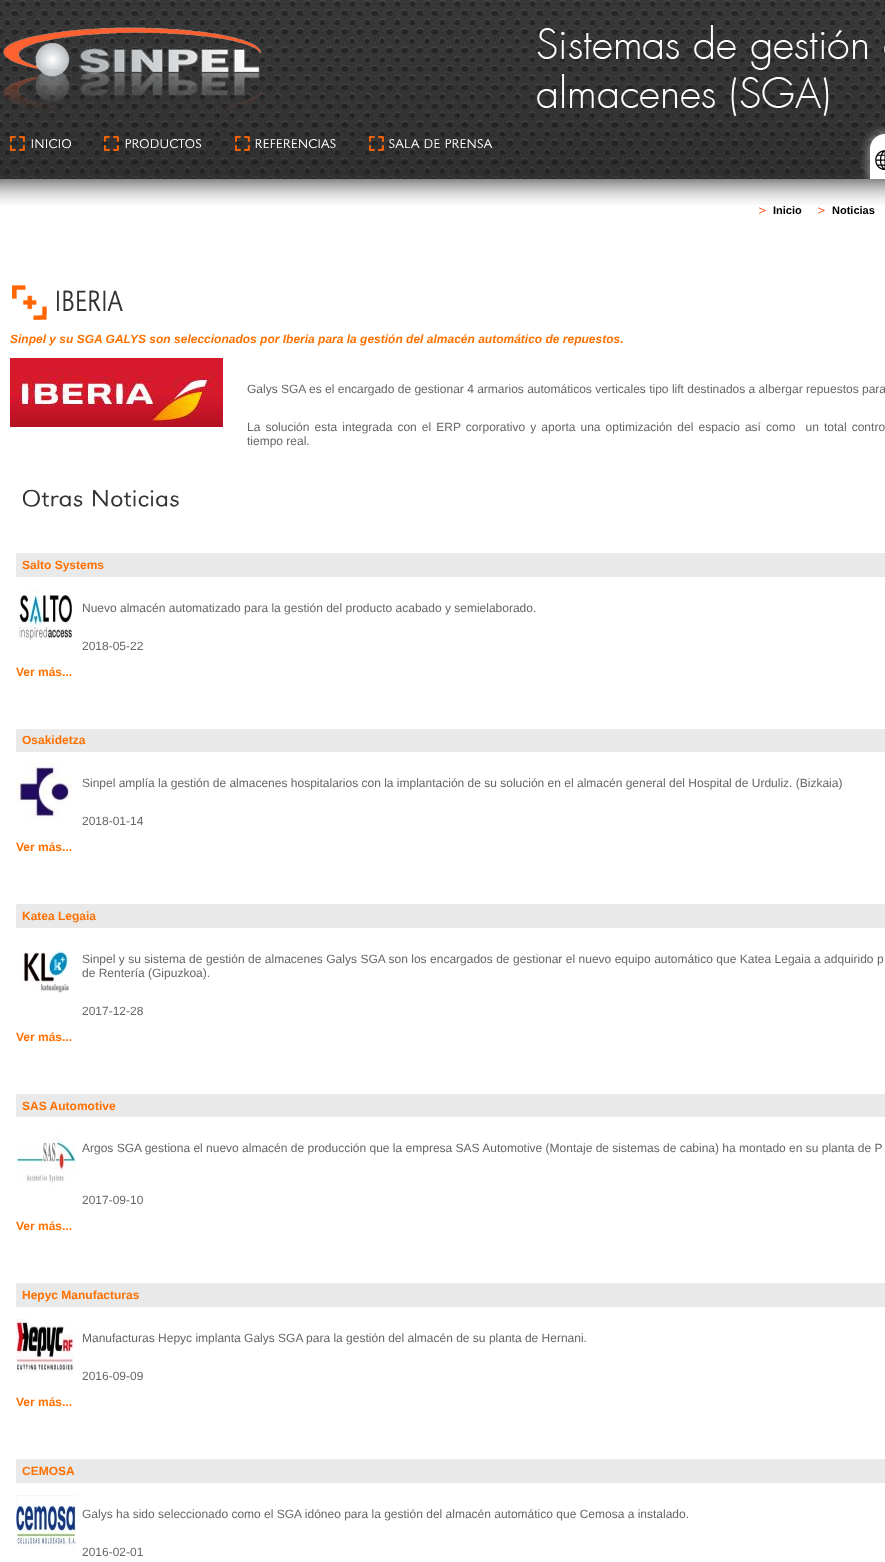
async function draw(canvas) {
  canvas.width = 885;
  canvas.height = 1562;
  const ctx = canvas.getContext('2d');
  ctx.miterLimit = 4;
  ctx.fontKerning = 'normal';
  function label(s, x, y, font, color) {
    ctx.font = font;
    ctx.fillStyle = color;
    ctx.fillText(s, x, y);
  }
  function rect(x, y, w, h, color) {
    ctx.fillStyle = color;
    ctx.fillRect(x, y, w, h);
  }
  async function image(src, x, y, w, h) {
    const img = new Image();
    img.src = src;
    await img.decode();
    ctx.drawImage(img, x, y, w, h);
  }

  rect(0, 0, 885, 1562, '#fff');
  await image('assets/img1.png', 0, 0, 885, 179);
  await image('assets/img2.png', 3, 27, 258, 82);
  await image('assets/img3.png', 537, 25, 348, 91);
  await image('assets/img4.png', 10, 136, 15, 15);
  await image('assets/img5.png', 31, 139, 40, 10);
  await image('assets/img6.png', 104, 136, 15, 15);
  await image('assets/img7.png', 125, 139, 77, 10);
  await image('assets/img4.png', 235, 136, 15, 15);
  await image('assets/img8.png', 255, 139, 81, 10);
  await image('assets/img9.png', 369, 136, 15, 15);
  await image('assets/img10.png', 389, 139, 31, 10);
  await image('assets/img11.png', 424, 139, 16, 9);
  await image('assets/img12.png', 445, 139, 48, 10);
  await image('assets/img13.png', 860, 126, 25, 53);
  await image('assets/img14.png', 0, 179, 885, 26);
  await image('assets/img15.png', 759, 207, 7, 7);
  label('Inicio', 773, 214, 'bold 11px Liberation Sans', '#000');
  await image('assets/img15.png', 818, 207, 7, 7);
  label('Noticias', 832, 214, 'bold 11px Liberation Sans', '#000');
  await image('assets/img16.png', 12, 285, 35, 35);
  await image('assets/img17.png', 57, 290, 66, 21);
  label('Sinpel y su SGA GALYS son seleccionados por Iberia para la gestión del almacén automático de repuestos.', 10, 343, 'italic bold 12px Liberation Sans', '#ff7102');
  await image('assets/img18.png', 10, 358, 213, 69);
  label('Galys SGA es el encargado de gestionar 4 armarios automáticos verticales tipo lift destinados a albergar repuestos para', 247, 393, '12px Liberation Sans', '#666');
  ctx.wordSpacing = '1.75px';
  label('La solución esta integrada con el ERP corporativo y aporta una optimización del espacio así como  un total contro', 247, 431, '12px Liberation Sans', '#666');
  ctx.wordSpacing = '0px';
  label('tiempo real.', 247, 445, '12px Liberation Sans', '#666');
  await image('assets/img19.png', 22, 489, 61, 18);
  await image('assets/img20.png', 93, 490, 86, 17);
  rect(16, 553, 869, 24, '#e9e9e9');
  label('Salto Systems', 22, 569, 'bold 12px Liberation Sans', '#ff7102');
  await image('assets/img21.png', 19, 589, 53, 52);
  label('Nuevo almacén automatizado para la gestión del producto acabado y semielaborado.', 82, 612, '12px Liberation Sans', '#666');
  label('2018-05-22', 82, 650, '12px Liberation Sans', '#666');
  label('Ver más...', 16, 676, 'bold 12px Liberation Sans', '#ff7102');
  rect(16, 729, 869, 23, '#e9e9e9');
  label('Osakidetza', 22, 744, 'bold 12px Liberation Sans', '#ff7102');
  await image('assets/img22.png', 16, 764, 58, 56);
  label('Sinpel amplía la gestión de almacenes hospitalarios con la implantación de su solución en el almacén general del Hospital de Urduliz. (Bizkaia)', 82, 787, '12px Liberation Sans', '#666');
  label('2018-01-14', 82, 825, '12px Liberation Sans', '#666');
  label('Ver más...', 16, 851, 'bold 12px Liberation Sans', '#ff7102');
  rect(16, 904, 869, 24, '#e9e9e9');
  label('Katea Legaia', 22, 920, 'bold 12px Liberation Sans', '#ff7102');
  await image('assets/img23.png', 21, 951, 48, 42);
  ctx.wordSpacing = '0.1px';
  label('Sinpel y su sistema de gestión de almacenes Galys SGA son los encargados de gestionar el nuevo equipo automático que Katea Legaia a adquirido p', 82, 963, '12px Liberation Sans', '#666');
  ctx.wordSpacing = '0px';
  label('de Rentería (Gipuzkoa).', 82, 977, '12px Liberation Sans', '#666');
  label('2017-12-28', 82, 1015, '12px Liberation Sans', '#666');
  label('Ver más...', 16, 1041, 'bold 12px Liberation Sans', '#ff7102');
  rect(16, 1094, 869, 23, '#e9e9e9');
  label('SAS Automotive', 22, 1110, 'bold 12px Liberation Sans', '#ff7102');
  await image('assets/img24.png', 16, 1133, 60, 54);
  label('Argos SGA gestiona el nuevo almacén de producción que la empresa SAS Automotive (Montaje de sistemas de cabina) ha montado en su planta de P', 82, 1152, '12px Liberation Sans', '#666');
  label('2017-09-10', 82, 1204, '12px Liberation Sans', '#666');
  label('Ver más...', 16, 1230, 'bold 12px Liberation Sans', '#ff7102');
  rect(16, 1283, 869, 24, '#e9e9e9');
  label('Hepyc Manufacturas', 22, 1299, 'bold 12px Liberation Sans', '#ff7102');
  await image('assets/img25.png', 16, 1319, 60, 54);
  label('Manufacturas Hepyc implanta Galys SGA para la gestión del almacén de su planta de Hernani.', 82, 1342, '12px Liberation Sans', '#666');
  label('2016-09-09', 82, 1380, '12px Liberation Sans', '#666');
  label('Ver más...', 16, 1406, 'bold 12px Liberation Sans', '#ff7102');
  rect(16, 1459, 869, 24, '#e9e9e9');
  label('CEMOSA', 22, 1475, 'bold 12px Liberation Sans', '#ff7102');
  await image('assets/img26.png', 16, 1495, 60, 60);
  label('Galys ha sido seleccionado como el SGA idóneo para la gestión del almacén automático que Cemosa a instalado.', 82, 1518, '12px Liberation Sans', '#666');
  label('2016-02-01', 82, 1556, '12px Liberation Sans', '#666');
}

draw(document.querySelector('canvas'));
